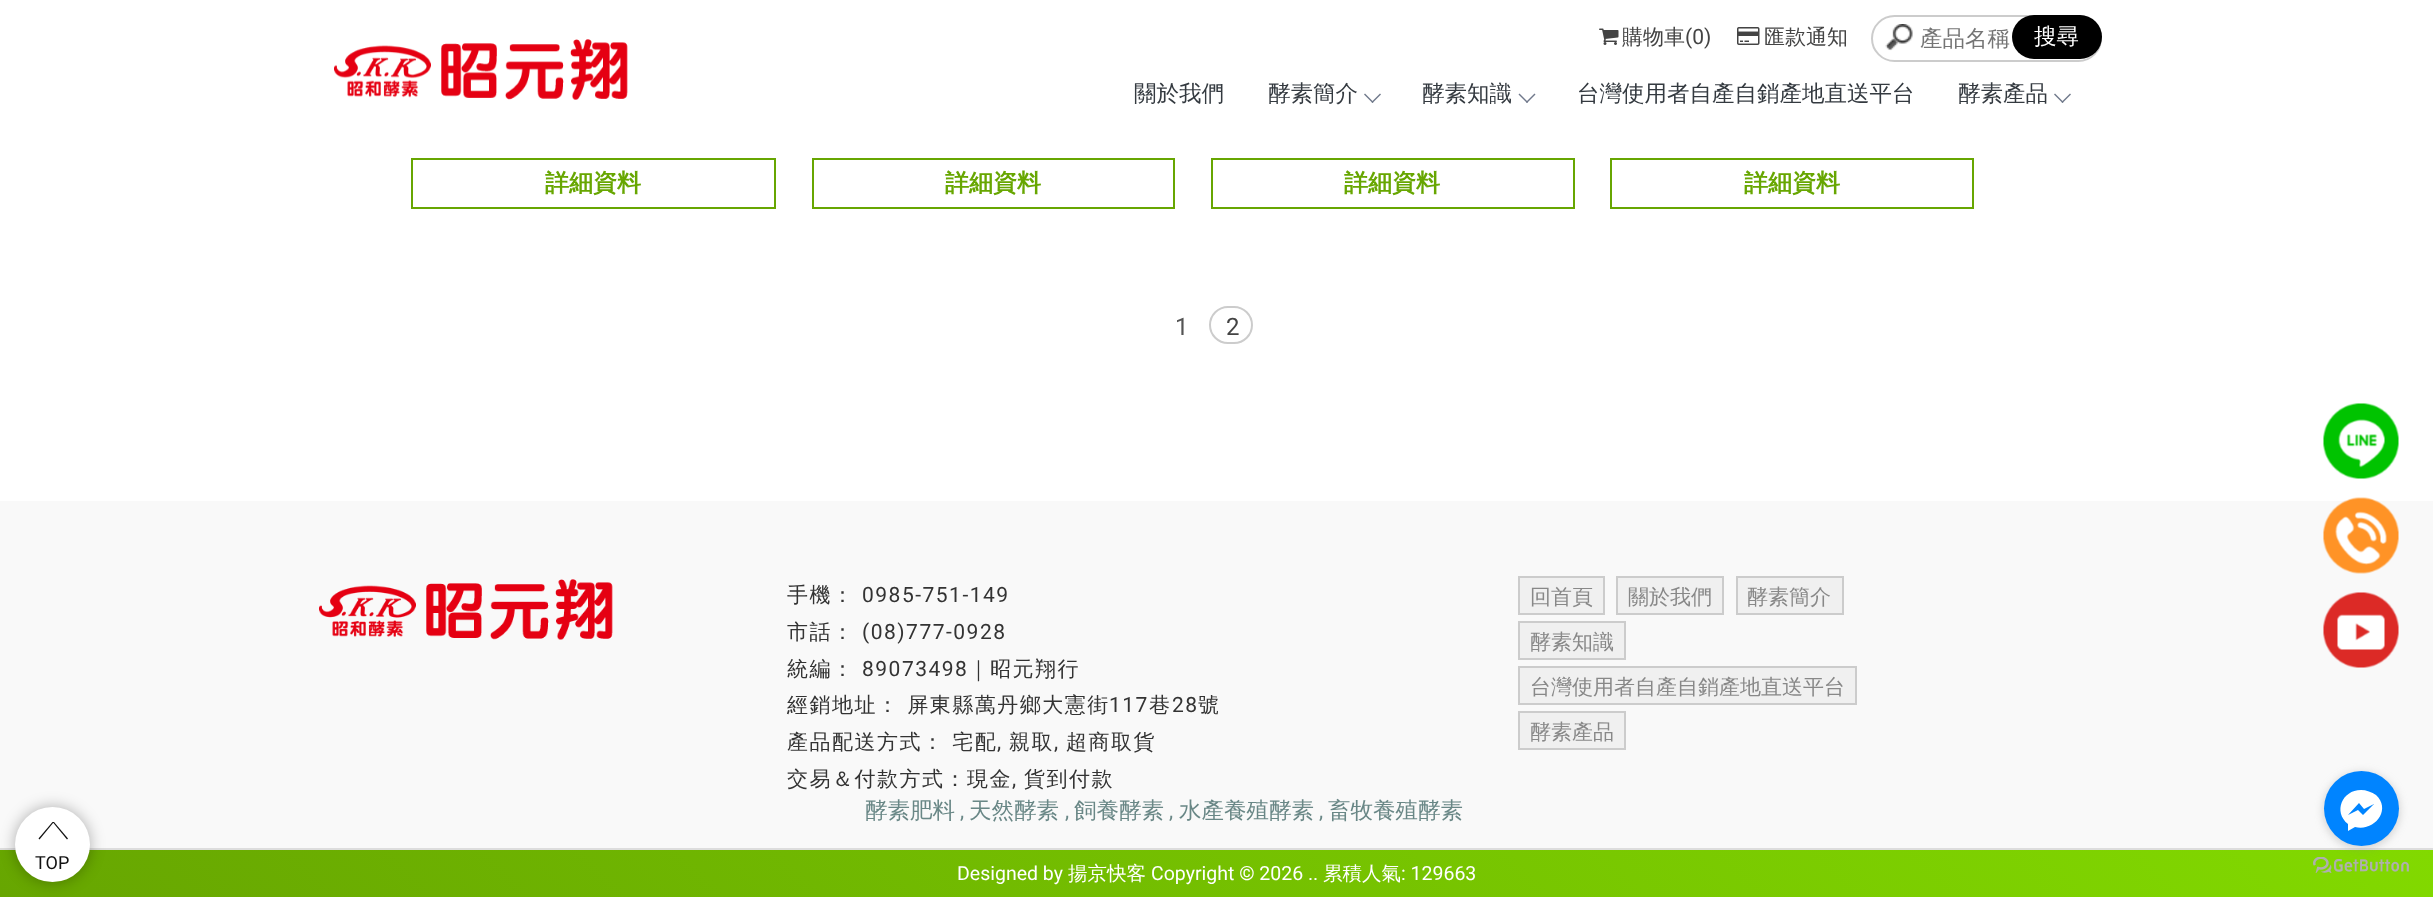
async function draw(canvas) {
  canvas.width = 2433;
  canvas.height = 897;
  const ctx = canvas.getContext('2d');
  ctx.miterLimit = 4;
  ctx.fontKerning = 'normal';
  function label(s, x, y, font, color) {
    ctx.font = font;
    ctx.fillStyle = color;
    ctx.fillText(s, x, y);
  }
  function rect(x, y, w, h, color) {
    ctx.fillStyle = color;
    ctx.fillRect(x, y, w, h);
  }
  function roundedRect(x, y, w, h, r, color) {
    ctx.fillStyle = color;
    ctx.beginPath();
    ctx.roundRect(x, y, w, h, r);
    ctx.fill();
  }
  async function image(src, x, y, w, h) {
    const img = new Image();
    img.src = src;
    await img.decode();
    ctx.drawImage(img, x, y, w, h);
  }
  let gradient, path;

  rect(0, 0, 2433, 897, '#fff');
  await image('assets/img1.png', 334, 39, 294, 61);
  await image('assets/img2.png', 1599, 28, 20, 17);
  label('購物車', 1622, 44, '500 21px WenQuanYi Zen Hei', '#444');
  label('(0)', 1685, 44, '21px Roboto', '#444');
  await image('assets/img3.png', 1737, 27, 23, 18);
  label('匯款通知', 1764, 44, '500 21px WenQuanYi Zen Hei', '#444');
  await image('assets/img4.png', 1885, 24, 28, 27);
  ctx.beginPath();
  ctx.roundRect(1872, 16, 229, 45, 22.5);
  ctx.strokeStyle = '#ccc';
  ctx.lineWidth = 2;
  ctx.stroke();
  label('產品名稱', 1920, 46, '500 22.5px WenQuanYi Zen Hei', '#757575');
  roundedRect(2012, 15, 90, 44, 22, '#000');
  label('搜尋', 2034, 44, '500 22.5px WenQuanYi Zen Hei', '#fff');
  label('關於我們', 1134, 101, '500 22.5px WenQuanYi Zen Hei', '#343a40');
  label('酵素簡介', 1268, 101, '500 22.5px WenQuanYi Zen Hei', '#343a40');
  ctx.fillStyle = '#70798b';
  path = new Path2D('M1380 93.5L1381 94.5L1372.5 103L1371.5 102Z');
  ctx.fill(path);
  path = new Path2D('M1365 93.5L1373.5 102L1372.5 103L1364 94.5Z');
  ctx.fill(path);
  label('酵素知識', 1422, 101, '500 22.5px WenQuanYi Zen Hei', '#343a40');
  ctx.fillStyle = '#70798b';
  path = new Path2D('M1534.5 93.5L1535.5 94.5L1527 103L1526 102Z');
  ctx.fill(path);
  path = new Path2D('M1519.5 93.5L1528 102L1527 103L1518.5 94.5Z');
  ctx.fill(path);
  label('台灣使用者自產自銷產地直送平台', 1577, 101, '500 22.5px WenQuanYi Zen Hei', '#343a40');
  label('酵素產品', 1958, 101, '500 22.5px WenQuanYi Zen Hei', '#343a40');
  ctx.fillStyle = '#70798b';
  path = new Path2D('M2070 93.5L2071 94.5L2062.5 103L2061.5 102Z');
  ctx.fill(path);
  path = new Path2D('M2055 93.5L2063.5 102L2062.5 103L2054 94.5Z');
  ctx.fill(path);
  ctx.strokeStyle = '#67a601';
  ctx.strokeRect(412, 159, 363, 49);
  label('詳細資料', 545, 191, 'bold 24px WenQuanYi Zen Hei', '#67a601');
  ctx.strokeRect(813, 159, 361, 49);
  label('詳細資料', 945, 191, 'bold 24px WenQuanYi Zen Hei', '#67a601');
  ctx.strokeRect(1212, 159, 362, 49);
  label('詳細資料', 1344, 191, 'bold 24px WenQuanYi Zen Hei', '#67a601');
  ctx.strokeRect(1611, 159, 362, 49);
  label('詳細資料', 1744, 191, 'bold 24px WenQuanYi Zen Hei', '#67a601');
  label('1', 1175, 335, '24px Roboto', '#545454');
  ctx.beginPath();
  ctx.roundRect(1210, 307, 42, 36, 18);
  ctx.strokeStyle = '#ccc';
  ctx.stroke();
  label('2', 1226, 335, '24px Roboto', '#444');
  rect(0, 501, 2433, 347, '#f9f9f9');
  gradient = ctx.createLinearGradient(596, 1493, 1837, 253);
  gradient.addColorStop(0, '#67a601');
  gradient.addColorStop(1, '#82d900');
  ctx.fillStyle = gradient;
  ctx.fillRect(0, 850, 2433, 47);
  rect(0, 848, 2433, 2, '#ddd');
  ctx.fillStyle = '#0000004d';
  ctx.filter = 'blur(7.5px)';
  ctx.beginPath();
  ctx.roundRect(15, 807, 75, 75, 37.5);
  ctx.fill();
  ctx.filter = 'none';
  ctx.fillStyle = '#fff';
  ctx.beginPath();
  ctx.arc(52.5, 844.5, 37.5, 0, 2 * Math.PI);
  ctx.fill();
  ctx.fillStyle = '#111';
  path = new Path2D('M53 822H54L68 838.5L67.5 839L67 839.5L53 822.5Z');
  ctx.fill(path);
  path = new Path2D('M53 822L53.5 822.5L39.5 839.5L39 839L38.5 838.5L52.5 822Z');
  ctx.fill(path);
  label('TOP', 35, 869, '18px Roboto', '#111');
  await image('assets/img5.png', 319, 579, 294, 61);
  ctx.letterSpacing = '1.5px';
  label('手機：', 787, 602, '500 21px WenQuanYi Zen Hei', '#333');
  label('0985-751-149', 862, 602, '21px Roboto', '#333');
  label('市話：', 787, 639, '500 21px WenQuanYi Zen Hei', '#333');
  label('(08)777-0928', 862, 639, '21px Roboto', '#333');
  label('統編：', 787, 676, '500 21px WenQuanYi Zen Hei', '#333');
  label('89073498', 862, 676, '21px Roboto', '#333');
  label('｜昭元翔行', 968, 676, '500 21px WenQuanYi Zen Hei', '#333');
  label('經銷地址： 屏東縣萬丹鄉大憲街', 787, 712, '500 21px WenQuanYi Zen Hei', '#333');
  label('117', 1109, 712, '21px Roboto', '#333');
  label('巷', 1149, 712, '500 21px WenQuanYi Zen Hei', '#333');
  label('28', 1172, 712, '21px Roboto', '#333');
  label('號', 1198, 712, '500 21px WenQuanYi Zen Hei', '#333');
  label('產品配送方式： 宅配', 787, 749, '500 21px WenQuanYi Zen Hei', '#333');
  label(',', 997, 749, '21px Roboto', '#333');
  label('親取', 1009, 749, '500 21px WenQuanYi Zen Hei', '#333');
  label(',', 1054, 749, '21px Roboto', '#333');
  label('超商取貨', 1066, 749, '500 21px WenQuanYi Zen Hei', '#333');
  label('交易＆付款方式：現金', 787, 786, '500 21px WenQuanYi Zen Hei', '#333');
  label(',', 1012, 786, '21px Roboto', '#333');
  label('貨到付款', 1024, 786, '500 21px WenQuanYi Zen Hei', '#333');
  ctx.fillStyle = '#f0f0f0';
  ctx.beginPath();
  ctx.rect(1519, 577, 85, 37);
  ctx.fill();
  ctx.stroke();
  ctx.letterSpacing = '0px';
  label('回首頁', 1530, 604, '500 21px WenQuanYi Zen Hei', '#888');
  ctx.fillStyle = '#f0f0f0';
  ctx.beginPath();
  ctx.rect(1617, 577, 106, 37);
  ctx.fill();
  ctx.stroke();
  label('關於我們', 1628, 604, '500 21px WenQuanYi Zen Hei', '#888');
  ctx.fillStyle = '#f0f0f0';
  ctx.beginPath();
  ctx.rect(1737, 577, 106, 37);
  ctx.fill();
  ctx.stroke();
  label('酵素簡介', 1747, 604, '500 21px WenQuanYi Zen Hei', '#888');
  ctx.fillStyle = '#f0f0f0';
  ctx.beginPath();
  ctx.rect(1519, 622, 106, 37);
  ctx.fill();
  ctx.stroke();
  label('酵素知識', 1530, 649, '500 21px WenQuanYi Zen Hei', '#888');
  ctx.fillStyle = '#f0f0f0';
  ctx.beginPath();
  ctx.rect(1519, 667, 337, 37);
  ctx.fill();
  ctx.stroke();
  label('台灣使用者自產自銷產地直送平台', 1530, 694, '500 21px WenQuanYi Zen Hei', '#888');
  ctx.fillStyle = '#f0f0f0';
  ctx.beginPath();
  ctx.rect(1519, 712, 106, 37);
  ctx.fill();
  ctx.stroke();
  label('酵素產品', 1530, 739, '500 21px WenQuanYi Zen Hei', '#888');
  await image('assets/img6.png', 2323, 403, 76, 76);
  await image('assets/img7.png', 2323, 497, 76, 77);
  await image('assets/img8.png', 2323, 592, 76, 76);
  label('酵素肥料', 865, 818, '500 22.5px WenQuanYi Zen Hei', '#698786');
  label(',', 960, 818, '21px Roboto', '#698786');
  label('天然酵素', 969, 818, '500 22.5px WenQuanYi Zen Hei', '#698786');
  label(',', 1065, 818, '21px Roboto', '#698786');
  label('飼養酵素', 1074, 818, '500 22.5px WenQuanYi Zen Hei', '#698786');
  label(',', 1169, 818, '21px Roboto', '#698786');
  label('水產養殖酵素', 1179, 818, '500 22.5px WenQuanYi Zen Hei', '#698786');
  label(',', 1319, 818, '21px Roboto', '#698786');
  label('畜牧養殖酵素', 1328, 818, '500 22.5px WenQuanYi Zen Hei', '#698786');
  label('Designed by', 957, 880, '19.5px Roboto', '#fff');
  label('揚京快客', 1068, 880, '500 19.5px WenQuanYi Zen Hei', '#fff');
  label('Copyright © 2026 ..', 1151, 880, '19.5px Roboto', '#fff');
  label('累積人氣', 1323, 880, '500 19.5px WenQuanYi Zen Hei', '#fff');
  label(': 129663', 1401, 880, '19.5px Roboto', '#fff');
  await image('assets/img9.png', 2313, 857, 96, 16);
  ctx.fillStyle = '#88888866';
  ctx.filter = 'blur(5px)';
  ctx.beginPath();
  ctx.roundRect(2324, 773, 75, 75, 37.5);
  ctx.fill();
  ctx.filter = 'none';
  ctx.fillStyle = '#0084ff';
  ctx.beginPath();
  ctx.arc(2361.5, 808.5, 37.5, 0, 2 * Math.PI);
  ctx.fill();
  ctx.fillStyle = '#fff';
  path = new Path2D('M2361 790C2342 790 2333 812 2348 824V831L2355 827C2374 832 2392 810 2376 795C2372 792 2366 790 2361 790ZM2363 815L2358 810L2348 815L2359 803L2364 809L2374 804Z');
  ctx.fill(path);
}

draw(document.querySelector('canvas'));
